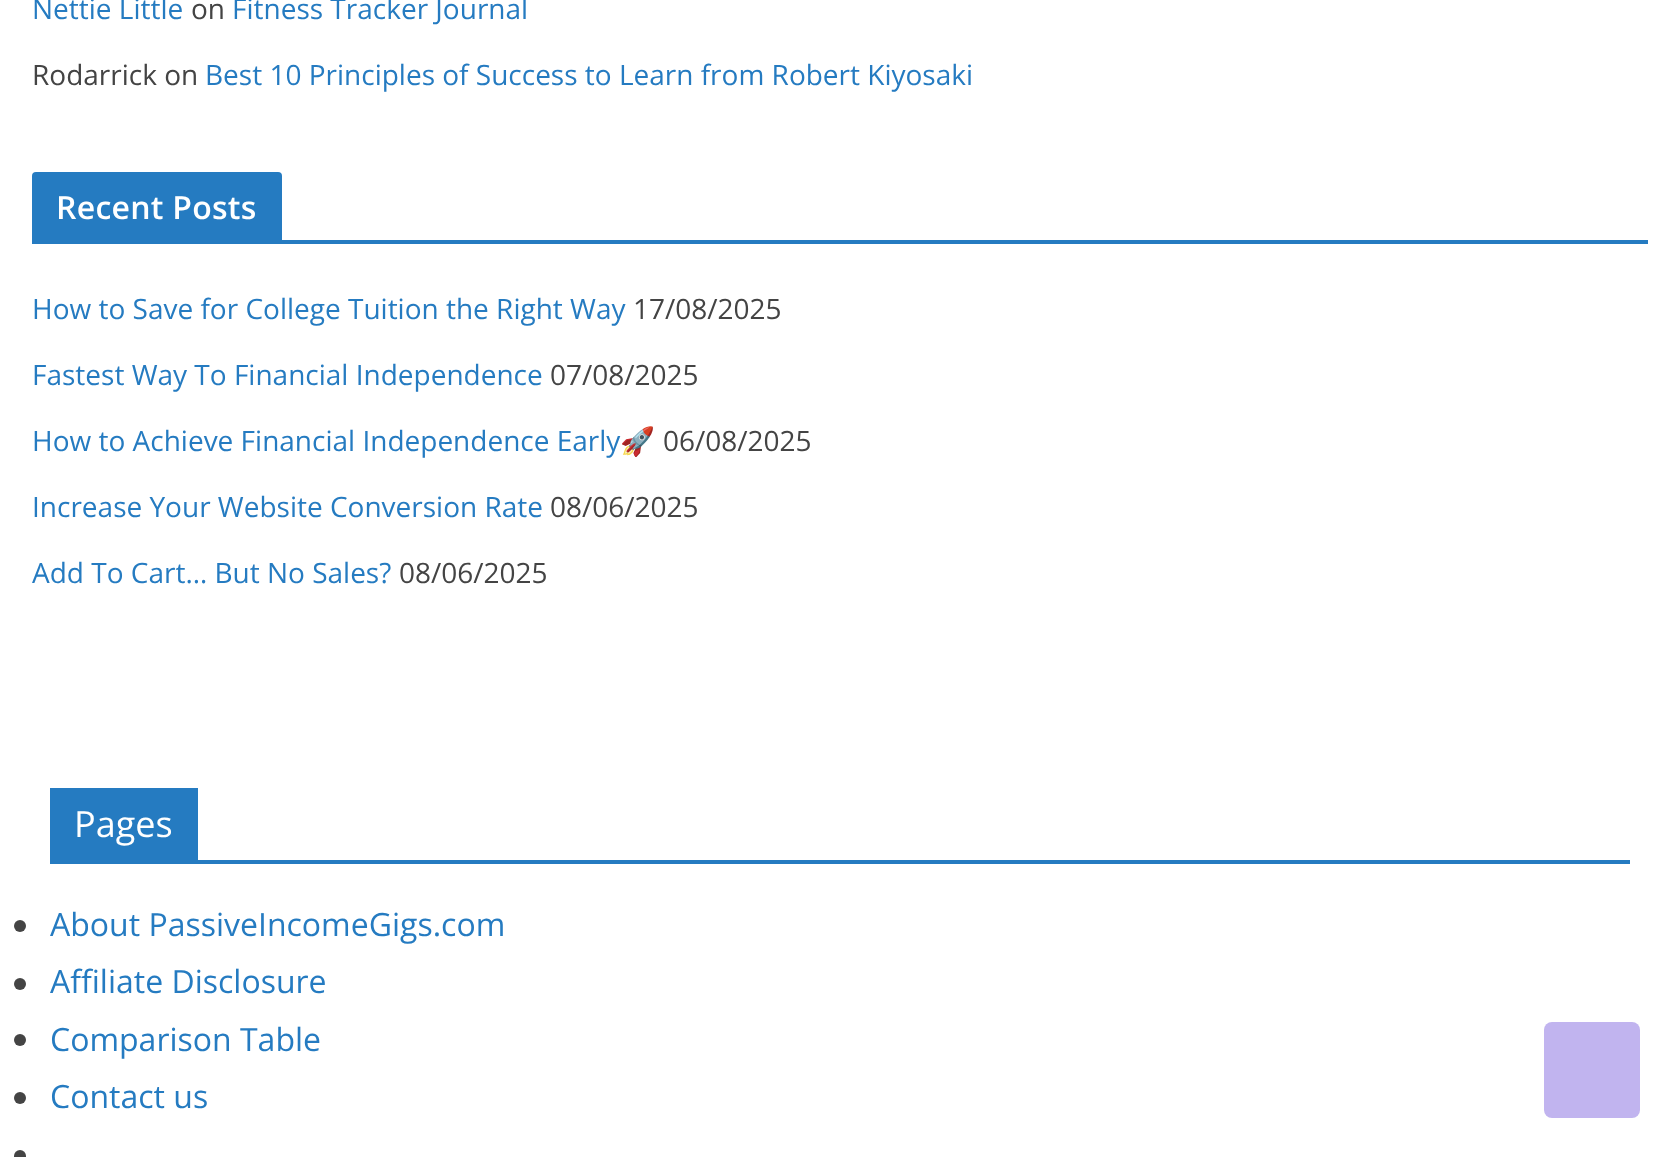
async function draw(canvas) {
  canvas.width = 1680;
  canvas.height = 1157;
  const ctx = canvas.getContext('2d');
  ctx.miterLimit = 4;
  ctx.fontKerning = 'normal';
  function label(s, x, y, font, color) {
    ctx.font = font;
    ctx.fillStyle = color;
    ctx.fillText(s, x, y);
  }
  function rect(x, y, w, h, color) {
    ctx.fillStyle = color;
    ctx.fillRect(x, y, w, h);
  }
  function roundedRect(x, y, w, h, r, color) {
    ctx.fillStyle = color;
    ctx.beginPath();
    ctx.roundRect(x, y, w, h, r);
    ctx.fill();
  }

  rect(0, 0, 1680, 1157, '#fff');
  label('Nettie Little', 32, 19, '28px Open Sans', '#257bc1');
  label('on', 191, 19, '28px Open Sans', '#444');
  label('Fitness Tracker Journal', 232, 19, '28px Open Sans', '#257bc1');
  label('Rodarrick on', 32, 85, '28px Open Sans', '#444');
  label('Best 10 Principles of Success to Learn from Robert Kiyosaki', 205, 85, '28px Open Sans', '#257bc1');
  rect(32, 240, 1616, 4, '#257bc1');
  ctx.beginPath();
  ctx.roundRect(32, 172, 250, 68, [4, 4, 0, 0]);
  ctx.fill();
  ctx.letterSpacing = '0.25px';
  label('Recent Posts', 56, 219, '600 32px Open Sans', '#fff');
  ctx.letterSpacing = '0px';
  label('How to Save for College Tuition the Right Way', 32, 319, '28px Open Sans', '#257bc1');
  label('17/08/2025', 633, 319, '28px Open Sans', '#444');
  label('Fastest Way To Financial Independence', 32, 385, '28px Open Sans', '#257bc1');
  label('07/08/2025', 550, 385, '28px Open Sans', '#444');
  label('How to Achieve Financial Independence Early', 32, 451, '28px Open Sans', '#257bc1');
  label('🚀', 620, 451, '28px Noto Color Emoji', '#257bc1');
  label('06/08/2025', 663, 451, '28px Open Sans', '#444');
  label('Increase Your Website Conversion Rate', 32, 517, '28px Open Sans', '#257bc1');
  label('08/06/2025', 550, 517, '28px Open Sans', '#444');
  label('Add To Cart… But No Sales?', 32, 583, '28px Open Sans', '#257bc1');
  label('08/06/2025', 399, 583, '28px Open Sans', '#444');
  rect(50, 860, 1580, 4, '#257bc1');
  rect(50, 788, 148, 72, '#257bc1');
  label('Pages', 74, 837, '36px Open Sans', '#fff');
  ctx.fillStyle = '#444';
  ctx.beginPath();
  ctx.arc(20, 926, 6, 0, 2 * Math.PI);
  ctx.fill();
  label('About PassiveIncomeGigs.com', 50, 936, '32px Open Sans', '#257bc1');
  ctx.fillStyle = '#444';
  ctx.beginPath();
  ctx.arc(20, 984, 6, 0, 2 * Math.PI);
  ctx.fill();
  label('Affiliate Disclosure', 50, 993, '32px Open Sans', '#257bc1');
  ctx.fillStyle = '#444';
  ctx.beginPath();
  ctx.arc(20, 1040, 6, 0, 2 * Math.PI);
  ctx.fill();
  label('Comparison Table', 50, 1051, '32px Open Sans', '#257bc1');
  ctx.fillStyle = '#444';
  ctx.beginPath();
  ctx.arc(20, 1098, 6, 0, 2 * Math.PI);
  ctx.fill();
  label('Contact us', 50, 1108, '32px Open Sans', '#257bc1');
  ctx.fillStyle = '#444';
  ctx.beginPath();
  ctx.arc(20, 1156, 6, 0, 2 * Math.PI);
  ctx.fill();
  roundedRect(1544, 1022, 96, 96, 8, '#c1b4ef');
}

draw(document.querySelector('canvas'));
